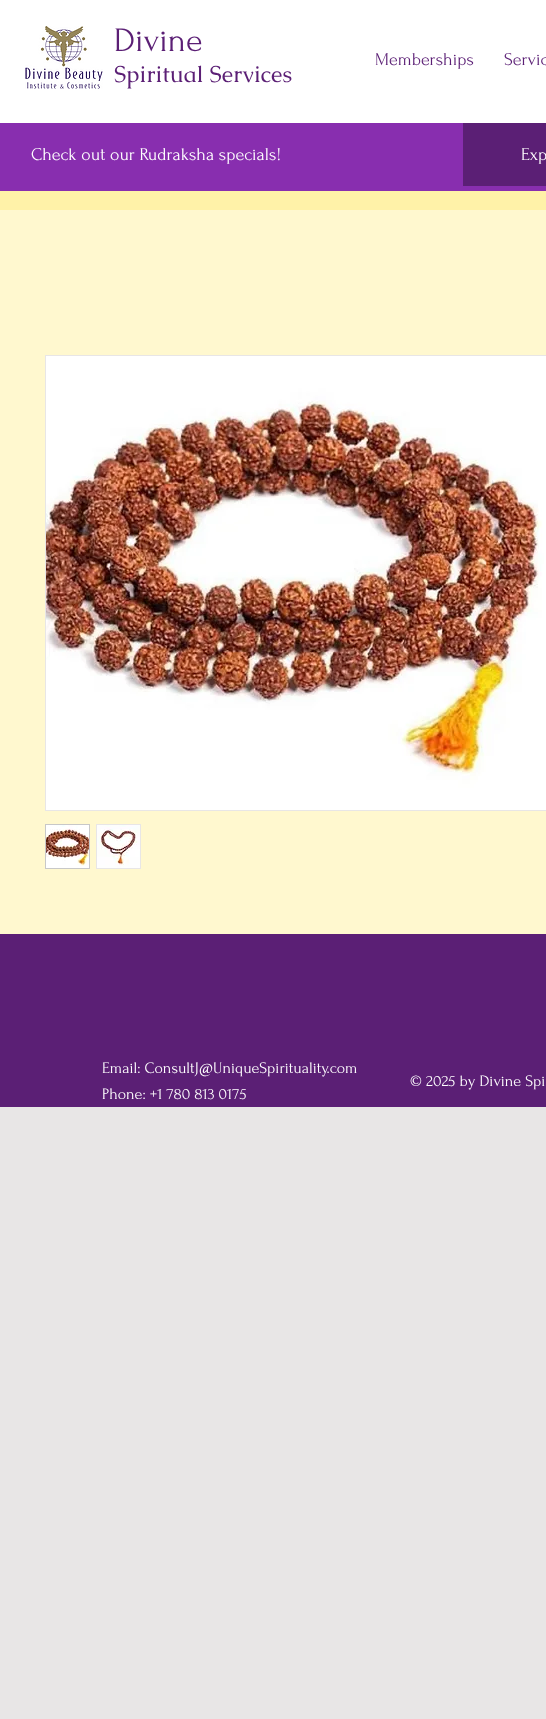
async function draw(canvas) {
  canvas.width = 546;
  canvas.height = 1719;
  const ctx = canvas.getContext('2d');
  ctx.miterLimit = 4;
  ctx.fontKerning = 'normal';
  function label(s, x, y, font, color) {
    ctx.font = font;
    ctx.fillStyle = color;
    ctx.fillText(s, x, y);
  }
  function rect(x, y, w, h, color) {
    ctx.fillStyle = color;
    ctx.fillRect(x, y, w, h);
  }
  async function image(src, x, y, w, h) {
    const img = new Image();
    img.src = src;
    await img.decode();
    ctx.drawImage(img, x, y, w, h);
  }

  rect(0, 0, 546, 1719, '#e8e6e6');
  rect(0, 0, 546, 123, '#fff');
  await image('assets/img1.png', 25, 26, 78, 63);
  label('Divine', 114, 51, '34px Forum', '#5b1f75');
  label('Spiritual Services', 114, 82, '23px Caudex', '#5b1f75');
  label('Memberships', 375, 65, '18px Forum', '#5b1f75');
  label('Servic', 504, 65, '18px Forum', '#5b1f75');
  rect(0, 123, 546, 68, '#882eaf');
  label('Check out our Rudraksha specials!', 31, 160, '18px Forum', '#fff');
  rect(463, 123, 83, 63, '#5b1f75');
  label('Exp', 521, 160, '18px Forum', '#fff');
  rect(0, 191, 546, 19, '#fff2a8');
  rect(0, 210, 546, 724, '#fff8cf');
  ctx.strokeStyle = '#e8e6e6';
  ctx.strokeRect(45.5, 355.5, 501, 455);
  await image('assets/img2.png', 46, 356, 500, 454);
  ctx.strokeStyle = '#c8c8c8';
  ctx.strokeRect(45.5, 824.5, 44, 44);
  await image('assets/img3.png', 46, 825, 43, 43);
  rect(96, 824, 45, 45, '#e8e6e6');
  await image('assets/img4.png', 97, 825, 43, 43);
  rect(0, 934, 546, 173, '#5b1f75');
  label('Email: ConsultJ@UniqueSpirituality.com', 102, 1073, '16px Forum', '#fff');
  label('Phone: +1 780 813 0175', 102, 1099, '16px Forum', '#fff');
  label('© 2025 by Divine Spi', 410, 1086, '16px Forum', '#fff');
}

draw(document.querySelector('canvas'));
